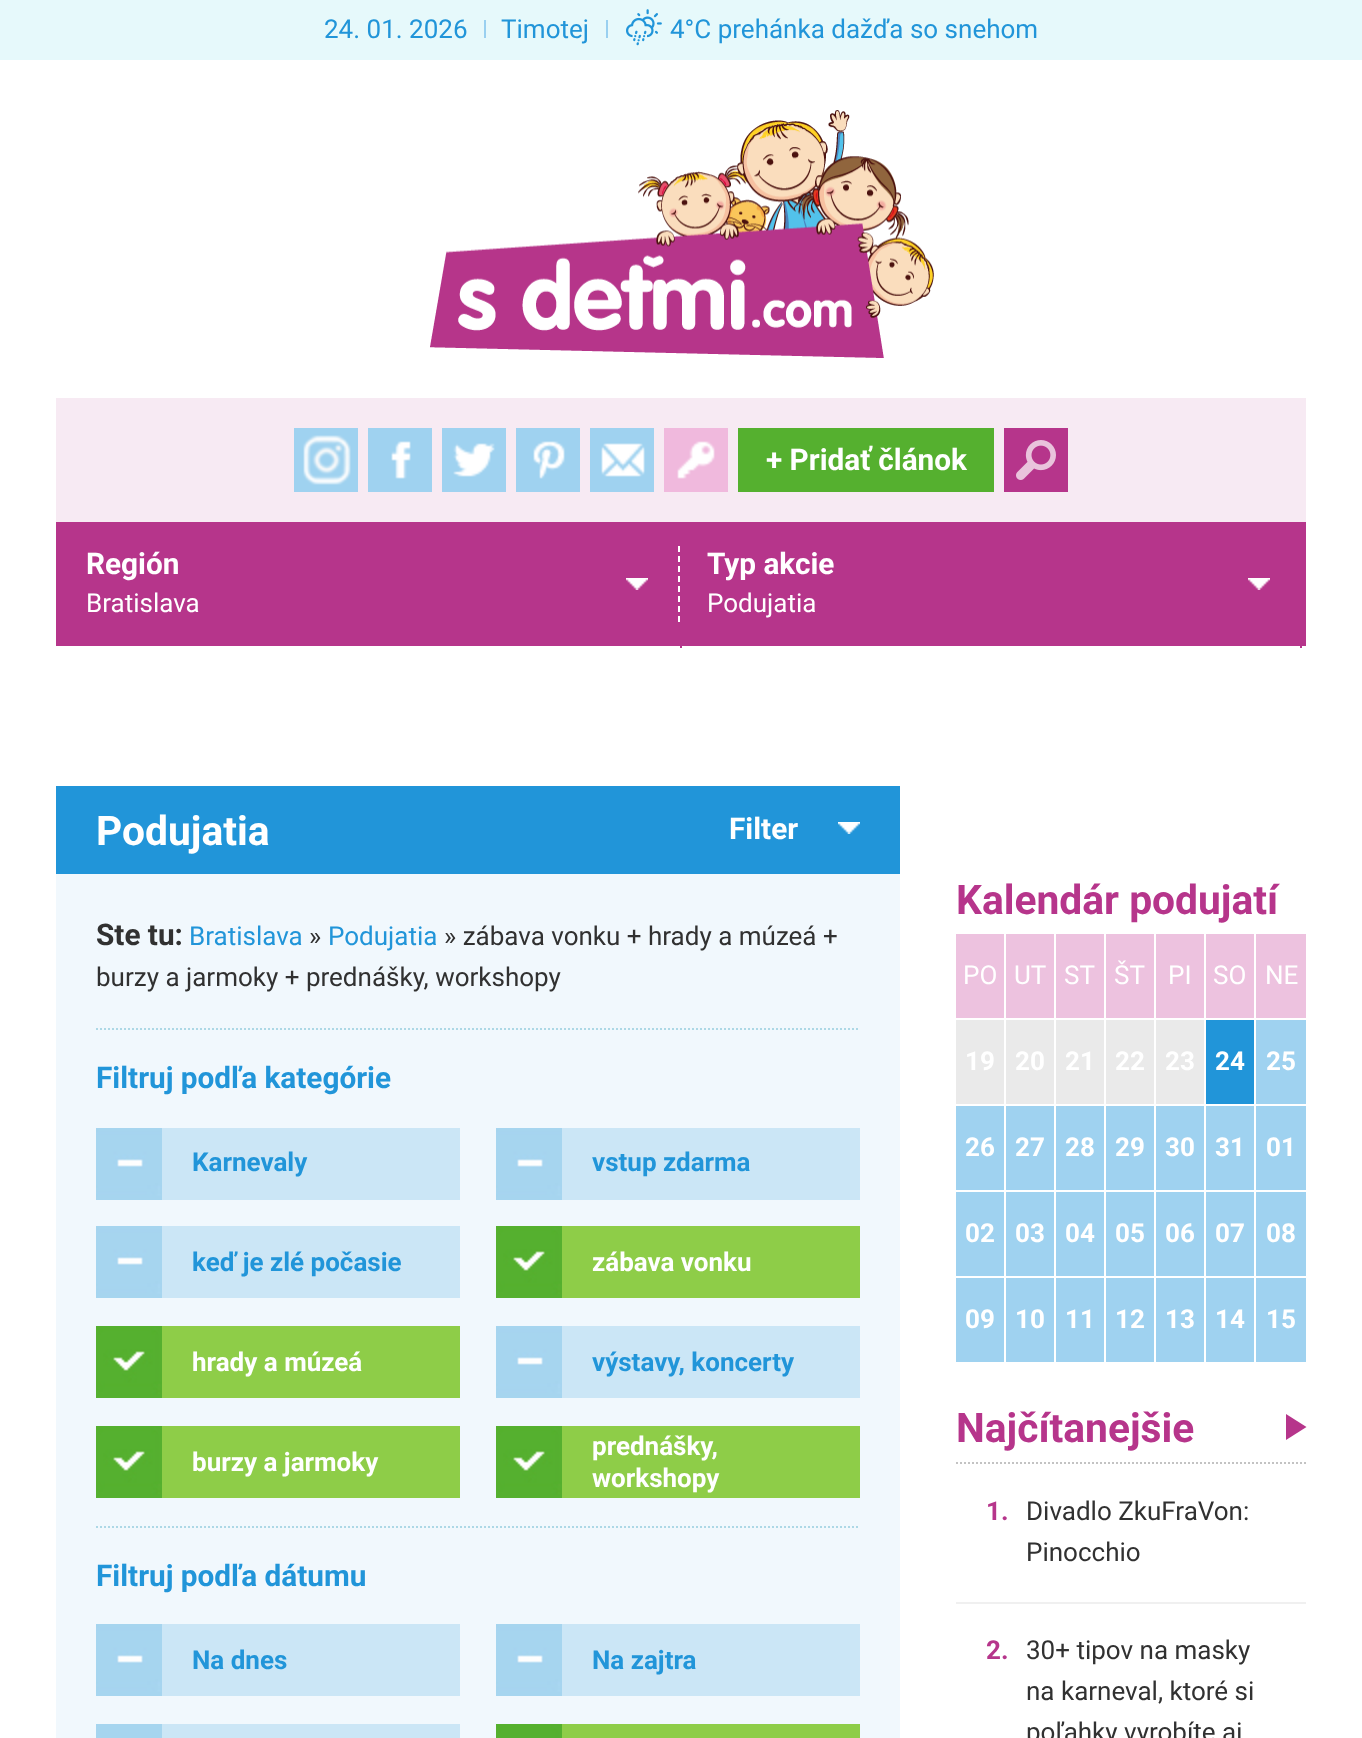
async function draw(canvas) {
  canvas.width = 1362;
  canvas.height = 1738;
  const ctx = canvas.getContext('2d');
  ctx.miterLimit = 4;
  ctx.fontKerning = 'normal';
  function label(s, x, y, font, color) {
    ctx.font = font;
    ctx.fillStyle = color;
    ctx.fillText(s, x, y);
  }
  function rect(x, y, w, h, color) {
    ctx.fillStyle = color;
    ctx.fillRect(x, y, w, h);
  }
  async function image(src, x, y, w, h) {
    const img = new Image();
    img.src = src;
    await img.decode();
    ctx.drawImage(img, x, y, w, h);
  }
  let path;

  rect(0, 0, 1362, 1738, '#e6f9fb');
  label('24. 01. 2026', 324, 38, '26px Roboto', '#2195d9');
  rect(484, 20, 2, 18, '#99d0f0');
  label('Timotej', 501, 38, '26px Roboto', '#2195d9');
  rect(606, 20, 2, 18, '#99d0f0');
  await image('assets/img1.png', 626, 9, 36, 37);
  label('4°C prehánka dažďa so snehom', 670, 38, '26px Roboto', '#2195d9');
  rect(0, 60, 1362, 1678, '#fff');
  await image('assets/img2.png', 430, 110, 504, 248);
  rect(56, 398, 1250, 124, '#f7eaf3');
  await image('assets/img3.png', 294, 428, 64, 64);
  await image('assets/img4.png', 368, 428, 64, 64);
  await image('assets/img5.png', 442, 428, 64, 64);
  await image('assets/img6.png', 516, 428, 64, 64);
  await image('assets/img7.png', 590, 428, 64, 64);
  await image('assets/img8.png', 664, 428, 64, 64);
  rect(738, 428, 256, 64, '#55b02f');
  label('+ Pridať článok', 766, 470, 'bold 29.75px Roboto', '#fff');
  rect(1004, 428, 64, 64, '#b6358b');
  await image('assets/img9.png', 1016, 440, 40, 40);
  rect(56, 522, 1250, 124, '#b6358b');
  rect(680, 646, 2, 2, '#b6358b');
  path = new Path2D('M679 546V622');
  ctx.strokeStyle = '#fff';
  ctx.lineWidth = 2;
  ctx.setLineDash([6, 4]);
  ctx.stroke(path);
  await image('assets/img10.png', 626, 578, 22, 12);
  label('Región', 86, 574, 'bold 29.75px Roboto', '#fff');
  label('Bratislava', 86, 612, '26px Roboto', '#fff');
  rect(1300, 646, 2, 2, '#b6358b');
  await image('assets/img10.png', 1248, 578, 22, 12);
  label('Typ akcie', 707, 574, 'bold 29.75px Roboto', '#fff');
  label('Podujatia', 707, 612, '26px Roboto', '#fff');
  rect(56, 874, 844, 864, '#f1f8fd');
  rect(56, 786, 844, 88, '#2195d9');
  label('Podujatia', 96, 845, 'bold 40.75px Roboto', '#fff');
  label('Filter', 729, 839, 'bold 29.75px Roboto', '#fff');
  await image('assets/img11.png', 838, 822, 22, 12);
  label('Ste tu:', 96, 945, 'bold 29.75px Roboto', '#313131');
  label('Bratislava', 189, 945, '26px Roboto', '#2195d9');
  label('»', 309, 945, '26px Roboto', '#313131');
  label('Podujatia', 328, 945, '26px Roboto', '#2195d9');
  label('» zábava vonku + hrady a múzeá +', 444, 945, '26px Roboto', '#313131');
  label('burzy a jarmoky + prednášky, workshopy', 96, 986, '26px Roboto', '#313131');
  path = new Path2D('M96 1029H860');
  ctx.strokeStyle = '#add8e6';
  ctx.setLineDash([2, 2]);
  ctx.stroke(path);
  label('Filtruj podľa kategórie', 96, 1088, 'bold 29.75px Roboto', '#2195d9');
  rect(162, 1128, 298, 72, '#cbe6f6');
  await image('assets/img12.png', 96, 1128, 66, 72);
  label('Karnevaly', 192, 1171, 'bold 26px Roboto', '#2195d9');
  rect(562, 1128, 298, 72, '#cbe6f6');
  await image('assets/img12.png', 496, 1128, 66, 72);
  label('vstup zdarma', 592, 1171, 'bold 26px Roboto', '#2195d9');
  rect(162, 1226, 298, 72, '#cbe6f6');
  await image('assets/img12.png', 96, 1226, 66, 72);
  label('keď je zlé počasie', 192, 1271, 'bold 26px Roboto', '#2195d9');
  rect(562, 1226, 298, 72, '#8ecd48');
  await image('assets/img13.png', 496, 1226, 66, 72);
  label('zábava vonku', 592, 1271, 'bold 26px Roboto', '#fff');
  rect(162, 1326, 298, 72, '#8ecd48');
  await image('assets/img13.png', 96, 1326, 66, 72);
  label('hrady a múzeá', 192, 1371, 'bold 26px Roboto', '#fff');
  rect(562, 1326, 298, 72, '#cbe6f6');
  await image('assets/img12.png', 496, 1326, 66, 72);
  label('výstavy, koncerty', 592, 1371, 'bold 26px Roboto', '#2195d9');
  rect(162, 1426, 298, 72, '#8ecd48');
  await image('assets/img13.png', 96, 1426, 66, 72);
  label('burzy a jarmoky', 192, 1471, 'bold 26px Roboto', '#fff');
  rect(562, 1426, 298, 72, '#8ecd48');
  await image('assets/img13.png', 496, 1426, 66, 72);
  label('prednášky,', 592, 1455, 'bold 26px Roboto', '#fff');
  label('workshopy', 592, 1487, 'bold 26px Roboto', '#fff');
  path = new Path2D('M96 1527H860');
  ctx.stroke(path);
  label('Filtruj podľa dátumu', 96, 1586, 'bold 29.75px Roboto', '#2195d9');
  rect(162, 1624, 298, 72, '#cbe6f6');
  await image('assets/img12.png', 96, 1624, 66, 72);
  label('Na dnes', 192, 1669, 'bold 26px Roboto', '#2195d9');
  rect(562, 1624, 298, 72, '#cbe6f6');
  await image('assets/img12.png', 496, 1624, 66, 72);
  label('Na zajtra', 592, 1669, 'bold 26px Roboto', '#2195d9');
  rect(162, 1724, 298, 14, '#cbe6f6');
  rect(96, 1724, 66, 14, '#a6d5ef');
  rect(562, 1724, 298, 14, '#8ecd48');
  await image('assets/img14.png', 496, 1724, 66, 14);
  label('Kalendár podujatí', 956, 914, 'bold 40.75px Roboto', '#b6358b');
  rect(956, 934, 48, 84, '#edc2df');
  label('PO', 963, 984, '26px Roboto', '#fff');
  rect(1006, 934, 48, 84, '#edc2df');
  label('UT', 1014, 984, '26px Roboto', '#fff');
  rect(1056, 934, 48, 84, '#edc2df');
  label('ST', 1064, 984, '26px Roboto', '#fff');
  rect(1106, 934, 48, 84, '#edc2df');
  label('ŠT', 1114, 984, '26px Roboto', '#fff');
  rect(1156, 934, 48, 84, '#edc2df');
  label('PI', 1168, 984, '26px Roboto', '#fff');
  rect(1206, 934, 48, 84, '#edc2df');
  label('SO', 1213, 984, '26px Roboto', '#fff');
  rect(1256, 934, 50, 84, '#edc2df');
  label('NE', 1265, 984, '26px Roboto', '#fff');
  rect(956, 1020, 48, 84, '#eaeaea');
  label('19', 965, 1070, 'bold 26px Roboto', '#fff');
  rect(1006, 1020, 48, 84, '#eaeaea');
  label('20', 1015, 1070, 'bold 26px Roboto', '#fff');
  rect(1056, 1020, 48, 84, '#eaeaea');
  label('21', 1065, 1070, 'bold 26px Roboto', '#fff');
  rect(1106, 1020, 48, 84, '#eaeaea');
  label('22', 1115, 1070, 'bold 26px Roboto', '#fff');
  rect(1156, 1020, 48, 84, '#eaeaea');
  label('23', 1165, 1070, 'bold 26px Roboto', '#fff');
  rect(1206, 1020, 48, 84, '#2195d9');
  label('24', 1215, 1070, 'bold 26px Roboto', '#fff');
  rect(1256, 1020, 50, 84, '#9fd2f0');
  label('25', 1266, 1070, 'bold 26px Roboto', '#fff');
  rect(956, 1106, 48, 84, '#9fd2f0');
  label('26', 965, 1156, 'bold 26px Roboto', '#fff');
  rect(1006, 1106, 48, 84, '#9fd2f0');
  label('27', 1015, 1156, 'bold 26px Roboto', '#fff');
  rect(1056, 1106, 48, 84, '#9fd2f0');
  label('28', 1065, 1156, 'bold 26px Roboto', '#fff');
  rect(1106, 1106, 48, 84, '#9fd2f0');
  label('29', 1115, 1156, 'bold 26px Roboto', '#fff');
  rect(1156, 1106, 48, 84, '#9fd2f0');
  label('30', 1165, 1156, 'bold 26px Roboto', '#fff');
  rect(1206, 1106, 48, 84, '#9fd2f0');
  label('31', 1215, 1156, 'bold 26px Roboto', '#fff');
  rect(1256, 1106, 50, 84, '#9fd2f0');
  label('01', 1266, 1156, 'bold 26px Roboto', '#fff');
  rect(956, 1192, 48, 84, '#9fd2f0');
  label('02', 965, 1242, 'bold 26px Roboto', '#fff');
  rect(1006, 1192, 48, 84, '#9fd2f0');
  label('03', 1015, 1242, 'bold 26px Roboto', '#fff');
  rect(1056, 1192, 48, 84, '#9fd2f0');
  label('04', 1065, 1242, 'bold 26px Roboto', '#fff');
  rect(1106, 1192, 48, 84, '#9fd2f0');
  label('05', 1115, 1242, 'bold 26px Roboto', '#fff');
  rect(1156, 1192, 48, 84, '#9fd2f0');
  label('06', 1165, 1242, 'bold 26px Roboto', '#fff');
  rect(1206, 1192, 48, 84, '#9fd2f0');
  label('07', 1215, 1242, 'bold 26px Roboto', '#fff');
  rect(1256, 1192, 50, 84, '#9fd2f0');
  label('08', 1266, 1242, 'bold 26px Roboto', '#fff');
  rect(956, 1278, 48, 84, '#9fd2f0');
  label('09', 965, 1328, 'bold 26px Roboto', '#fff');
  rect(1006, 1278, 48, 84, '#9fd2f0');
  label('10', 1015, 1328, 'bold 26px Roboto', '#fff');
  rect(1056, 1278, 48, 84, '#9fd2f0');
  label('11', 1065, 1328, 'bold 26px Roboto', '#fff');
  rect(1106, 1278, 48, 84, '#9fd2f0');
  label('12', 1115, 1328, 'bold 26px Roboto', '#fff');
  rect(1156, 1278, 48, 84, '#9fd2f0');
  label('13', 1165, 1328, 'bold 26px Roboto', '#fff');
  rect(1206, 1278, 48, 84, '#9fd2f0');
  label('14', 1215, 1328, 'bold 26px Roboto', '#fff');
  rect(1256, 1278, 50, 84, '#9fd2f0');
  label('15', 1266, 1328, 'bold 26px Roboto', '#fff');
  path = new Path2D('M956 1463H1306');
  ctx.strokeStyle = '#c3c3c3';
  ctx.stroke(path);
  label('Najčítanejšie', 956, 1442, 'bold 40.75px Roboto', '#b6358b');
  path = new Path2D('M1286 1414V1440L1306.5 1427');
  ctx.fill(path);
  rect(956, 1602, 350, 2, '#f0f0f0');
  label('1.', 986, 1520, 'bold 26px Roboto', '#b6358b');
  label('Divadlo ZkuFraVon:', 1026, 1520, '26px Roboto', '#313131');
  label('Pinocchio', 1026, 1561, '26px Roboto', '#313131');
  label('2.', 986, 1659, 'bold 26px Roboto', '#b6358b');
  label('30+ tipov na masky', 1026, 1659, '26px Roboto', '#313131');
  label('na karneval, ktoré si', 1026, 1700, '26px Roboto', '#313131');
  label('poľahky vyrobíte aj', 1026, 1741, '26px Roboto', '#313131');
}

draw(document.querySelector('canvas'));
